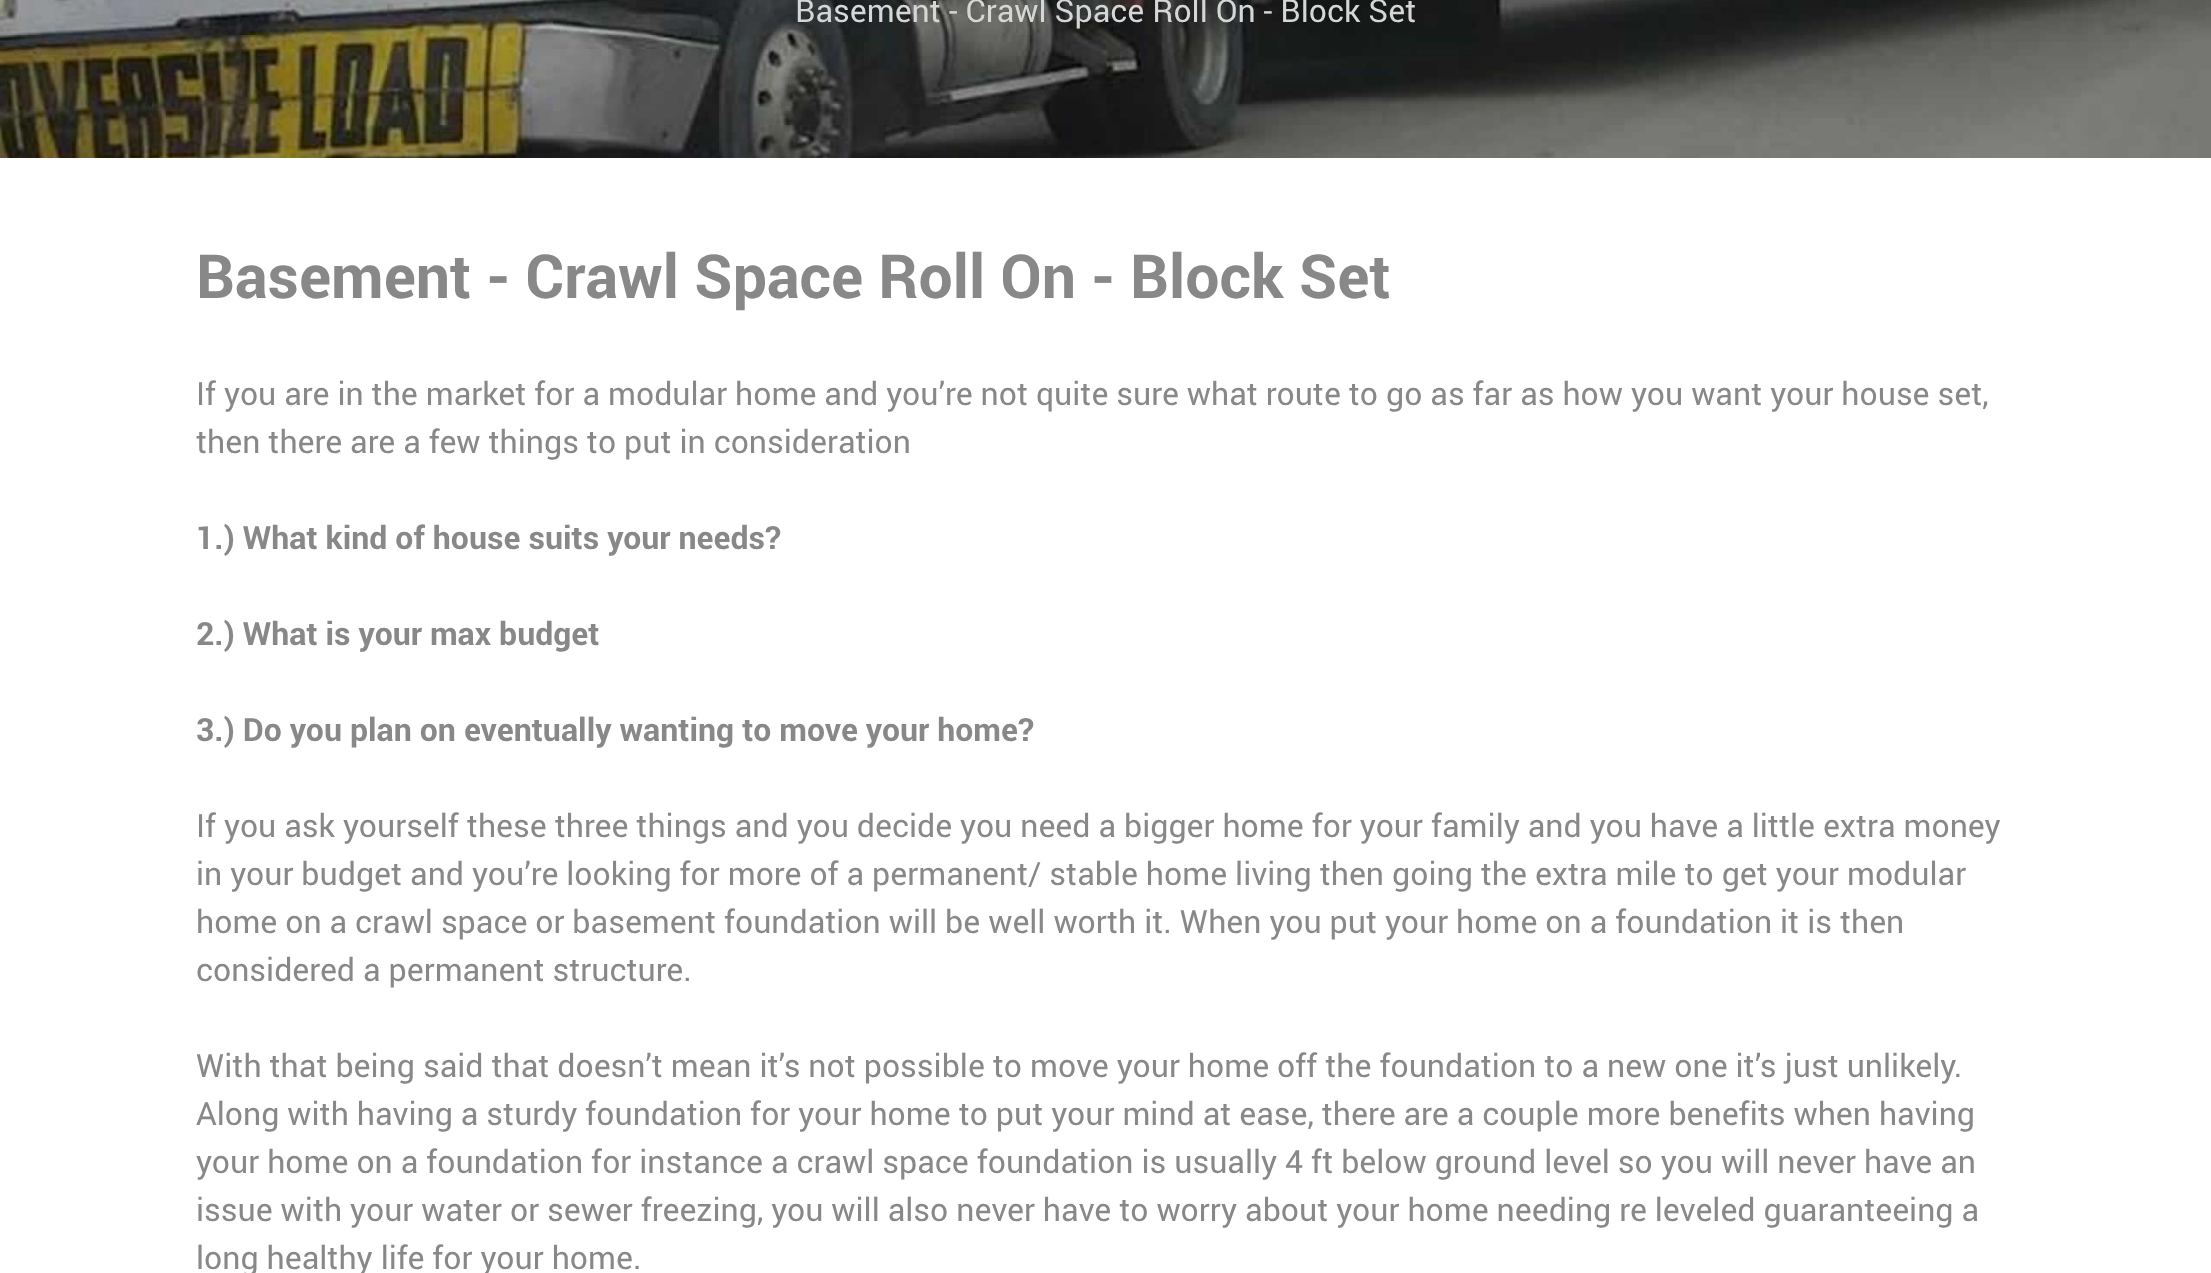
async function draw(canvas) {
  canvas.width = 2211;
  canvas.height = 1273;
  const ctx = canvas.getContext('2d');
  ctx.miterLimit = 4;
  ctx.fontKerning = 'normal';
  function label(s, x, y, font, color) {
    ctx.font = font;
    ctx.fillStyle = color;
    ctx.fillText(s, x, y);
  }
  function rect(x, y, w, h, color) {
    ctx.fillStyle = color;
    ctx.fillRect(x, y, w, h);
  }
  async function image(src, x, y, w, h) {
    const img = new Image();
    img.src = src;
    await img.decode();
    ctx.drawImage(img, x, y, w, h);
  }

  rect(0, 0, 2211, 1273, '#fff');
  await image('assets/img1.png', 0, 0, 2211, 158);
  label('Basement - Crawl Space Roll On - Block Set', 795, 22, '32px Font', '#d5d6d6');
  label('Basement - Crawl Space Roll On - Block Set', 196, 298, 'bold 60.75px Font', '#888');
  label('If you are in the market for a modular home and you’re not quite sure what route to go as far as how you want your house set,', 196, 405, '32px Font', '#888');
  label('then there are a few things to put in consideration', 196, 453, '32px Font', '#888');
  label('1.) What kind of house suits your needs?', 196, 549, 'bold 32px Font', '#888');
  label('2.) What is your max budget', 196, 645, 'bold 32px Font', '#888');
  label('3.) Do you plan on eventually wanting to move your home?', 196, 741, 'bold 32px Font', '#888');
  label('If you ask yourself these three things and you decide you need a bigger home for your family and you have a little extra money', 196, 837, '32px Font', '#888');
  label('in your budget and you’re looking for more of a permanent/ stable home living then going the extra mile to get your modular', 196, 885, '32px Font', '#888');
  label('home on a crawl space or basement foundation will be well worth it. When you put your home on a foundation it is then', 196, 933, '32px Font', '#888');
  label('considered a permanent structure.', 196, 981, '32px Font', '#888');
  label('With that being said that doesn’t mean it’s not possible to move your home off the foundation to a new one it’s just unlikely.', 196, 1077, '32px Font', '#888');
  label('Along with having a sturdy foundation for your home to put your mind at ease, there are a couple more benefits when having', 196, 1125, '32px Font', '#888');
  label('your home on a foundation for instance a crawl space foundation is usually 4 ft below ground level so you will never have an', 196, 1173, '32px Font', '#888');
  label('issue with your water or sewer freezing, you will also never have to worry about your home needing re leveled guaranteeing a', 196, 1221, '32px Font', '#888');
  label('long healthy life for your home.', 196, 1269, '32px Font', '#888');
}

draw(document.querySelector('canvas'));
